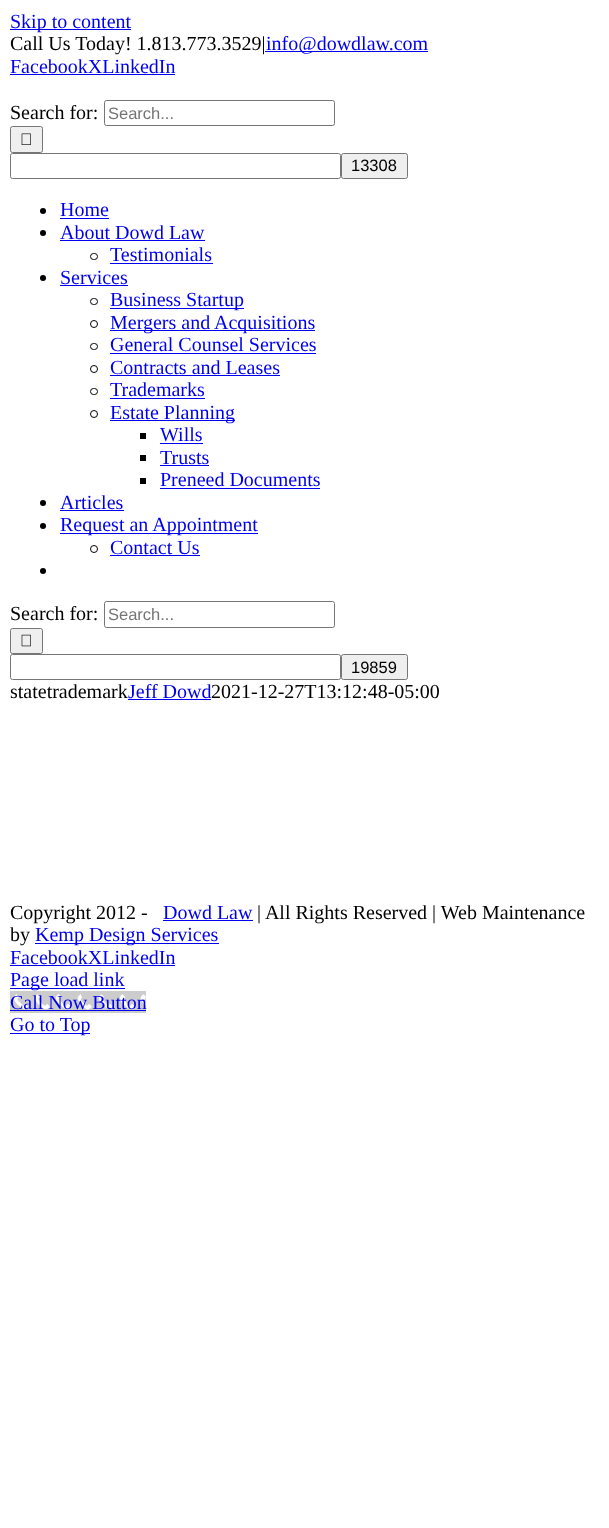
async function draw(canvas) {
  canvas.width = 609;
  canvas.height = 1528;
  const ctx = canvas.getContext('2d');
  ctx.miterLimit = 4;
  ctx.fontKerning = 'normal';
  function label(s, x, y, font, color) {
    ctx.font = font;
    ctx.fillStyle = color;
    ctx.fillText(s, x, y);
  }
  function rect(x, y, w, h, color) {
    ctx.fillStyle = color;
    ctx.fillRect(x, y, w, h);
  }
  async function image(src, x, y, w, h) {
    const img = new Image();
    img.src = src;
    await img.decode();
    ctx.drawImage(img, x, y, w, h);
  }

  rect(0, 0, 609, 1528, '#fff');
  rect(10, 29, 121, 1, '#00e');
  label('Skip to content', 10, 28, '20px Liberation Serif', '#00e');
  label('Call Us Today! 1.813.773.3529|', 10, 50, '20px Liberation Serif', '#000');
  rect(265, 51, 163, 1, '#00e');
  label('info@dowdlaw.com', 266, 50, '20px Liberation Serif', '#00e');
  label('FacebookXLinkedIn', 10, 73, '20px Liberation Serif', '#00e');
  rect(10, 74, 165, 1, '#00e');
  label('Search for:', 10, 119, '20px Liberation Serif', '#000');
  ctx.beginPath();
  ctx.roundRect(104.5, 100.5, 230, 25, 2);
  ctx.strokeStyle = '#767676';
  ctx.stroke();
  label('Search...', 108, 119, '16.5px Liberation Sans', '#757575');
  ctx.fillStyle = '#efefef';
  ctx.beginPath();
  ctx.roundRect(10.5, 126.5, 32, 26, 2);
  ctx.fill();
  ctx.stroke();
  await image('assets/img1.png', 21, 133, 10, 12);
  ctx.beginPath();
  ctx.roundRect(10.5, 153.5, 330, 25, 2);
  ctx.stroke();
  ctx.beginPath();
  ctx.roundRect(341.5, 153.5, 66, 25, 2);
  ctx.fill();
  ctx.stroke();
  label('13308', 351, 171, '16.5px Liberation Sans', '#000');
  ctx.beginPath();
  ctx.arc(43, 211, 3, 0, 2 * Math.PI);
  ctx.fill();
  label('Home', 60, 216, '20px Liberation Serif', '#00e');
  rect(60, 218, 49, 1, '#00e');
  ctx.fillStyle = '#000';
  ctx.beginPath();
  ctx.arc(43, 233, 3, 0, 2 * Math.PI);
  ctx.fill();
  label('About Dowd Law', 60, 239, '20px Liberation Serif', '#00e');
  rect(60, 240, 145, 1, '#00e');
  ctx.beginPath();
  ctx.roundRect(90.5, 253.5, 7, 6, 3);
  ctx.strokeStyle = '#000';
  ctx.stroke();
  label('Testimonials', 110, 261, '20px Liberation Serif', '#00e');
  rect(110, 263, 103, 1, '#00e');
  ctx.fillStyle = '#000';
  ctx.beginPath();
  ctx.arc(43, 278, 3, 0, 2 * Math.PI);
  ctx.fill();
  label('Services', 60, 284, '20px Liberation Serif', '#00e');
  rect(60, 285, 68, 1, '#00e');
  ctx.beginPath();
  ctx.roundRect(90.5, 298.5, 7, 6, 3);
  ctx.stroke();
  rect(110, 308, 134, 1, '#00e');
  label('Business Startup', 110, 306, '20px Liberation Serif', '#00e');
  ctx.beginPath();
  ctx.arc(94, 324, 3.5, 0, 2 * Math.PI);
  ctx.stroke();
  rect(110, 330, 205, 1, '#00e');
  label('Mergers and Acquisitions', 110, 329, '20px Liberation Serif', '#00e');
  ctx.beginPath();
  ctx.roundRect(90.5, 343.5, 7, 6, 3);
  ctx.stroke();
  label('General Counsel Services', 110, 351, '20px Liberation Serif', '#00e');
  rect(110, 353, 206, 1, '#00e');
  ctx.beginPath();
  ctx.arc(94, 369, 3.5, 0, 2 * Math.PI);
  ctx.stroke();
  label('Contracts and Leases', 110, 374, '20px Liberation Serif', '#00e');
  rect(110, 375, 170, 1, '#00e');
  ctx.beginPath();
  ctx.roundRect(90.5, 388.5, 7, 6, 3);
  ctx.stroke();
  label('Trademarks', 110, 396, '20px Liberation Serif', '#00e');
  rect(110, 398, 95, 1, '#00e');
  ctx.beginPath();
  ctx.arc(94, 414, 3.5, 0, 2 * Math.PI);
  ctx.stroke();
  rect(110, 420, 125, 1, '#00e');
  label('Estate Planning', 110, 419, '20px Liberation Serif', '#00e');
  rect(140, 433, 6, 6, '#000');
  label('Wills', 160, 441, '20px Liberation Serif', '#00e');
  rect(160, 443, 43, 1, '#00e');
  rect(140, 455, 6, 6, '#000');
  label('Trusts', 160, 464, '20px Liberation Serif', '#00e');
  rect(160, 465, 49, 1, '#00e');
  rect(140, 478, 6, 6, '#000');
  label('Preneed Documents', 160, 486, '20px Liberation Serif', '#00e');
  rect(160, 488, 160, 1, '#00e');
  ctx.fillStyle = '#000';
  ctx.beginPath();
  ctx.arc(43, 503, 3, 0, 2 * Math.PI);
  ctx.fill();
  label('Articles', 60, 509, '20px Liberation Serif', '#00e');
  rect(60, 510, 64, 1, '#00e');
  ctx.fillStyle = '#000';
  ctx.beginPath();
  ctx.arc(43, 526, 3, 0, 2 * Math.PI);
  ctx.fill();
  rect(60, 533, 198, 1, '#00e');
  label('Request an Appointment', 60, 531, '20px Liberation Serif', '#00e');
  ctx.beginPath();
  ctx.arc(94, 549, 3.5, 0, 2 * Math.PI);
  ctx.stroke();
  label('Contact Us', 110, 554, '20px Liberation Serif', '#00e');
  rect(110, 555, 90, 1, '#00e');
  ctx.fillStyle = '#000';
  ctx.beginPath();
  ctx.arc(43, 571, 3, 0, 2 * Math.PI);
  ctx.fill();
  label('Search for:', 10, 620, '20px Liberation Serif', '#000');
  ctx.beginPath();
  ctx.roundRect(104.5, 601.5, 230, 26, 2);
  ctx.strokeStyle = '#767676';
  ctx.stroke();
  label('Search...', 108, 620, '16.5px Liberation Sans', '#757575');
  ctx.fillStyle = '#efefef';
  ctx.beginPath();
  ctx.roundRect(10.5, 628.5, 32, 25, 2);
  ctx.fill();
  ctx.stroke();
  await image('assets/img2.png', 21, 634, 10, 13);
  ctx.beginPath();
  ctx.roundRect(10.5, 654.5, 330, 25, 2);
  ctx.stroke();
  ctx.beginPath();
  ctx.roundRect(341.5, 654.5, 66, 25, 2);
  ctx.fill();
  ctx.stroke();
  label('19859', 351, 673, '16.5px Liberation Sans', '#000');
  label('statetrademark', 10, 698, '20px Liberation Serif', '#000');
  label('Jeff Dowd', 128, 698, '20px Liberation Serif', '#00e');
  rect(128, 699, 83, 1, '#00e');
  label('2021-12-27T13:12:48-05:00', 211, 698, '20px Liberation Serif', '#000');
  label('Copyright 2012 -', 10, 919, '20px Liberation Serif', '#000');
  label('Dowd Law', 163, 919, '20px Liberation Serif', '#00e');
  rect(163, 920, 90, 1, '#00e');
  label('| All Rights Reserved | Web Maintenance', 257, 919, '20px Liberation Serif', '#000');
  label('by', 10, 941, '20px Liberation Serif', '#000');
  rect(35, 943, 184, 1, '#00e');
  label('Kemp Design Services', 35, 941, '20px Liberation Serif', '#00e');
  label('FacebookXLinkedIn', 10, 964, '20px Liberation Serif', '#00e');
  rect(10, 965, 165, 1, '#00e');
  rect(10, 988, 115, 1, '#00e');
  label('Page load link', 10, 986, '20px Liberation Serif', '#00e');
  rect(10, 991, 136, 22, '#ccc');
  await image('assets/img3.png', 13, 994, 133, 16);
  label('Call Now Button', 10, 1009, '20px Liberation Serif', '#00e');
  rect(10, 1010, 136, 1, '#00e');
  rect(10, 1033, 80, 1, '#00e');
  label('Go to Top', 10, 1031, '20px Liberation Serif', '#00e');
}

draw(document.querySelector('canvas'));
